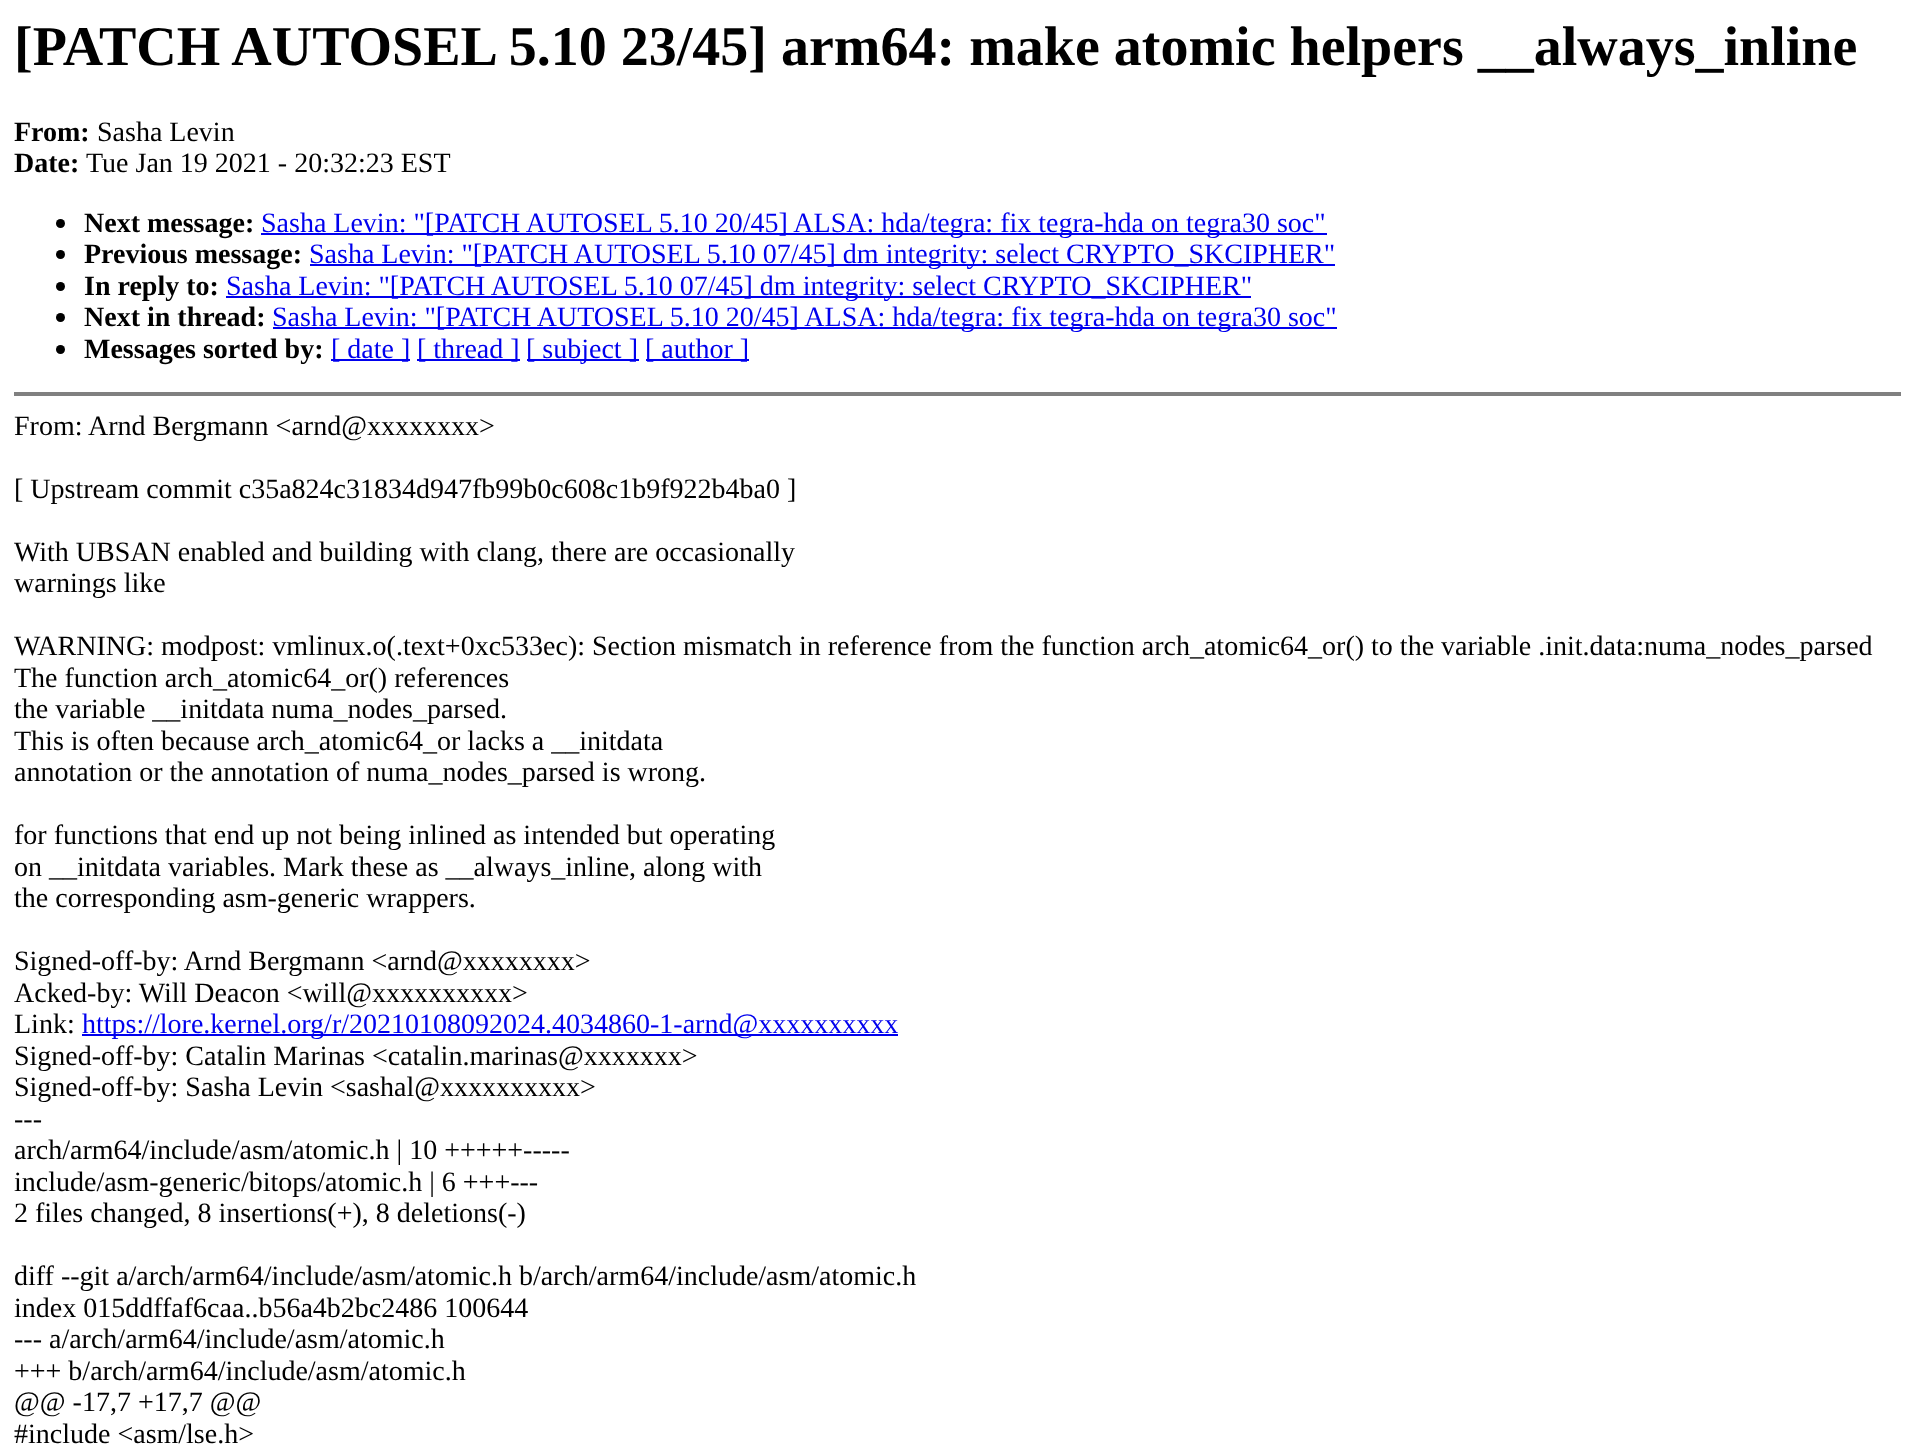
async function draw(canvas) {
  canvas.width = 1914;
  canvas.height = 1454;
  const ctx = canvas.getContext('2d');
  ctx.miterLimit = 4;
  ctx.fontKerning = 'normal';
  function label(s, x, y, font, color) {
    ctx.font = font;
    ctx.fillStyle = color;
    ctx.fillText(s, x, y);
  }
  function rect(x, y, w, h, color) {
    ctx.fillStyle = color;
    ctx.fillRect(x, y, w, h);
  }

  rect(0, 0, 1914, 1454, '#fff');
  label('[PATCH AUTOSEL 5.10 23/45] arm64: make atomic helpers __always_inline', 14, 65, 'bold 56px Liberation Serif', '#000');
  label('From:', 14, 141, 'bold 28px Liberation Serif', '#000');
  label('Sasha Levin', 97, 141, '28px Liberation Serif', '#000');
  label('Date:', 14, 172, 'bold 28px Liberation Serif', '#000');
  label('Tue Jan 19 2021 - 20:32:23 EST', 86, 172, '28px Liberation Serif', '#000');
  ctx.beginPath();
  ctx.arc(60.5, 223.5, 4.5, 0, 2 * Math.PI);
  ctx.fill();
  label('Next message:', 84, 232, 'bold 28px Liberation Serif', '#000');
  rect(261, 233, 1066, 2, '#00e');
  label('Sasha Levin: "[PATCH AUTOSEL 5.10 20/45] ALSA: hda/tegra: fix tegra-hda on tegra30 soc"', 261, 232, '28px Liberation Serif', '#00e');
  ctx.fillStyle = '#000';
  ctx.beginPath();
  ctx.arc(60.5, 254.5, 4.5, 0, 2 * Math.PI);
  ctx.fill();
  label('Previous message:', 84, 263, 'bold 28px Liberation Serif', '#000');
  rect(310, 264, 1025, 2, '#00e');
  label('Sasha Levin: "[PATCH AUTOSEL 5.10 07/45] dm integrity: select CRYPTO_SKCIPHER"', 309, 263, '28px Liberation Serif', '#00e');
  ctx.fillStyle = '#000';
  ctx.beginPath();
  ctx.arc(60.5, 286.5, 4.5, 0, 2 * Math.PI);
  ctx.fill();
  label('In reply to:', 84, 295, 'bold 28px Liberation Serif', '#000');
  rect(226, 296, 1025, 2, '#00e');
  label('Sasha Levin: "[PATCH AUTOSEL 5.10 07/45] dm integrity: select CRYPTO_SKCIPHER"', 226, 295, '28px Liberation Serif', '#00e');
  ctx.fillStyle = '#000';
  ctx.beginPath();
  ctx.arc(60.5, 317.5, 4.5, 0, 2 * Math.PI);
  ctx.fill();
  label('Next in thread:', 84, 326, 'bold 28px Liberation Serif', '#000');
  rect(273, 327, 1064, 2, '#00e');
  label('Sasha Levin: "[PATCH AUTOSEL 5.10 20/45] ALSA: hda/tegra: fix tegra-hda on tegra30 soc"', 272, 326, '28px Liberation Serif', '#00e');
  ctx.fillStyle = '#000';
  ctx.beginPath();
  ctx.arc(60.5, 349.5, 4.5, 0, 2 * Math.PI);
  ctx.fill();
  label('Messages sorted by:', 84, 358, 'bold 28px Liberation Serif', '#000');
  rect(331, 359, 79, 2, '#00e');
  label('[ date ]', 331, 358, '28px Liberation Serif', '#00e');
  rect(417, 359, 103, 2, '#00e');
  label('[ thread ]', 417, 358, '28px Liberation Serif', '#00e');
  rect(527, 359, 112, 2, '#00e');
  label('[ subject ]', 526, 358, '28px Liberation Serif', '#00e');
  rect(646, 359, 103, 2, '#00e');
  label('[ author ]', 645, 358, '28px Liberation Serif', '#00e');
  rect(14, 392, 1887, 4, '#808080');
  label('From: Arnd Bergmann <arnd@xxxxxxxx>', 14, 435, '28px Liberation Serif', '#000');
  label('[ Upstream commit c35a824c31834d947fb99b0c608c1b9f922b4ba0 ]', 14, 498, '28px Liberation Serif', '#000');
  label('With UBSAN enabled and building with clang, there are occasionally', 14, 561, '28px Liberation Serif', '#000');
  label('warnings like', 14, 592, '28px Liberation Serif', '#000');
  label('WARNING: modpost: vmlinux.o(.text+0xc533ec): Section mismatch in reference from the function arch_atomic64_or() to the variable .init.data:numa_nodes_parsed', 14, 655, '28px Liberation Serif', '#000');
  label('The function arch_atomic64_or() references', 14, 687, '28px Liberation Serif', '#000');
  label('the variable __initdata numa_nodes_parsed.', 14, 718, '28px Liberation Serif', '#000');
  label('This is often because arch_atomic64_or lacks a __initdata', 14, 750, '28px Liberation Serif', '#000');
  label('annotation or the annotation of numa_nodes_parsed is wrong.', 14, 781, '28px Liberation Serif', '#000');
  label('for functions that end up not being inlined as intended but operating', 14, 844, '28px Liberation Serif', '#000');
  label('on __initdata variables. Mark these as __always_inline, along with', 14, 876, '28px Liberation Serif', '#000');
  label('the corresponding asm-generic wrappers.', 14, 907, '28px Liberation Serif', '#000');
  label('Signed-off-by: Arnd Bergmann <arnd@xxxxxxxx>', 14, 970, '28px Liberation Serif', '#000');
  label('Acked-by: Will Deacon <will@xxxxxxxxxx>', 14, 1002, '28px Liberation Serif', '#000');
  label('Link:', 14, 1033, '28px Liberation Serif', '#000');
  rect(82, 1034, 816, 2, '#00e');
  label('https://lore.kernel.org/r/20210108092024.4034860-1-arnd@xxxxxxxxxx', 82, 1033, '28px Liberation Serif', '#00e');
  label('Signed-off-by: Catalin Marinas <catalin.marinas@xxxxxxx>', 14, 1065, '28px Liberation Serif', '#000');
  label('Signed-off-by: Sasha Levin <sashal@xxxxxxxxxx>', 14, 1096, '28px Liberation Serif', '#000');
  label('---', 14, 1128, '28px Liberation Serif', '#000');
  label('arch/arm64/include/asm/atomic.h | 10 +++++-----', 14, 1159, '28px Liberation Serif', '#000');
  label('include/asm-generic/bitops/atomic.h | 6 +++---', 14, 1191, '28px Liberation Serif', '#000');
  label('2 files changed, 8 insertions(+), 8 deletions(-)', 14, 1222, '28px Liberation Serif', '#000');
  label('diff --git a/arch/arm64/include/asm/atomic.h b/arch/arm64/include/asm/atomic.h', 14, 1285, '28px Liberation Serif', '#000');
  label('index 015ddffaf6caa..b56a4b2bc2486 100644', 14, 1317, '28px Liberation Serif', '#000');
  label('--- a/arch/arm64/include/asm/atomic.h', 14, 1348, '28px Liberation Serif', '#000');
  label('+++ b/arch/arm64/include/asm/atomic.h', 14, 1380, '28px Liberation Serif', '#000');
  label('@@ -17,7 +17,7 @@', 14, 1411, '28px Liberation Serif', '#000');
  label('#include <asm/lse.h>', 14, 1443, '28px Liberation Serif', '#000');
}

draw(document.querySelector('canvas'));
